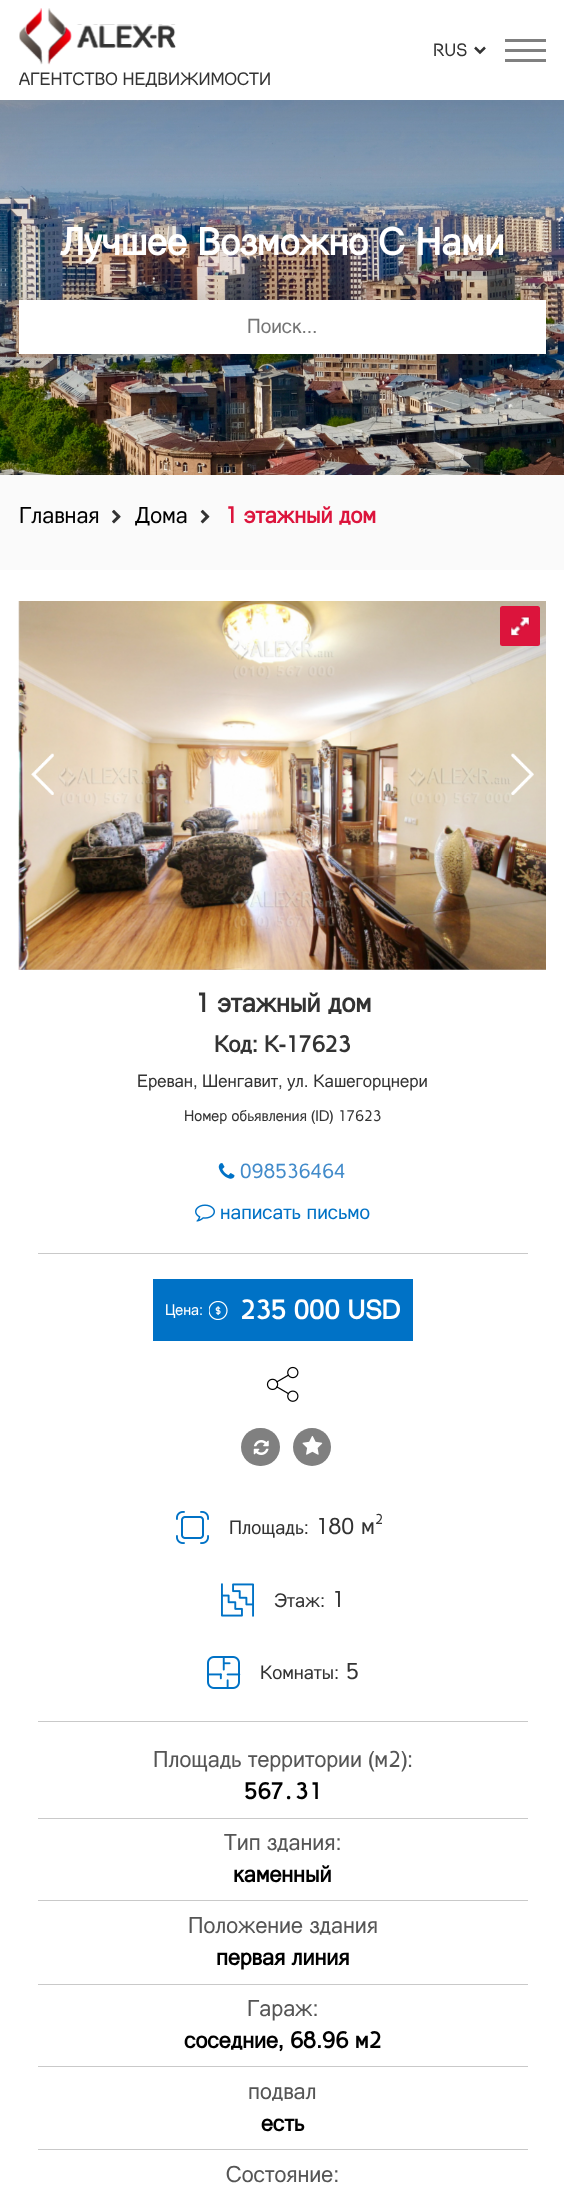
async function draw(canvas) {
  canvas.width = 564;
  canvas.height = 2198;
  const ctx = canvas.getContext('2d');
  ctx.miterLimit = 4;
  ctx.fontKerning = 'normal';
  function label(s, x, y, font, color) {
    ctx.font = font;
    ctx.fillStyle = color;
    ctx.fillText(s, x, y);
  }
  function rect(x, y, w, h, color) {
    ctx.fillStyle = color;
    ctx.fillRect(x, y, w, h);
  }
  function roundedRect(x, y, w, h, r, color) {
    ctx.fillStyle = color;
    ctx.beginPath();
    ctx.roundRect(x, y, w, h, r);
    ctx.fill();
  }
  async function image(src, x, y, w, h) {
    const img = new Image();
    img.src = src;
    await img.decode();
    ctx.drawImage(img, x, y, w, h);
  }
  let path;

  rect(0, 0, 564, 2198, '#fff');
  path = new Path2D('M475 47.5L480 52.5L485 47.5');
  ctx.strokeStyle = '#333';
  ctx.lineWidth = 2.5;
  ctx.stroke(path);
  label('RUS', 433, 56, '17.5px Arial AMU', '#333');
  rect(505, 39, 41, 3, '#808080');
  rect(505, 49, 41, 3, '#808080');
  rect(505, 59, 41, 3, '#808080');
  await image('assets/img1.png', 19, 8, 157, 57);
  label('АГЕНТСТВО НЕДВИЖИМОСТИ', 19, 85, '17.5px Arial AMU', '#333');
  await image('assets/img2.png', 0, 100, 564, 375);
  label('Лучшее Возможно С Нами', 60, 255, 'bold 37.5px Arial AMU', '#fff');
  ctx.fillStyle = '#00000040';
  ctx.filter = 'blur(21px)';
  ctx.beginPath();
  ctx.rect(19, 305, 527, 54);
  ctx.fill();
  ctx.filter = 'none';
  rect(19, 300, 527, 54, '#fff');
  label('Поиск...', 247, 333, '20px Arial AMU', '#757575');
  rect(0, 475, 564, 95, '#fafafa');
  label('Главная', 19, 523, '22.5px Arial AMU', '#000');
  await image('assets/img3.png', 112, 509, 9, 15);
  label('Дома', 135, 523, '22.5px Arial AMU', '#000');
  await image('assets/img4.png', 200, 509, 10, 15);
  label('1 этажный дом', 224, 523, 'bold 22.5px Arial AMU', '#dc143c');
  rect(19, 601, 527, 369, '#ccc');
  await image('assets/img5.png', 18, 601, 528, 369);
  roundedRect(500, 606, 40, 40, 2.5, '#dc143c');
  await image('assets/img6.png', 510, 616, 20, 21);
  await image('assets/img7.png', 31, 753, 23, 42);
  await image('assets/img8.png', 511, 753, 23, 42);
  label('1 этажный дом', 194, 1012, 'bold 26.25px Arial AMU', '#333');
  label('Код: K-17623', 214, 1052, 'bold 22.5px Arial AMU', '#333');
  label('Ереван, Шенгавит, ул. Кашегорцнери', 137, 1087, '17.5px Arial AMU', '#333');
  label('Номер обьявления (ID) 17623', 184, 1121, '15px Arial AMU', '#333');
  await image('assets/img9.png', 218, 1163, 17, 16);
  label('098536464', 240, 1178, '20px Arial AMU', '#428bca');
  await image('assets/img10.png', 195, 1204, 20, 18);
  label('написать письмо', 220, 1219, '20px Arial AMU', '#0072c6');
  rect(38, 1253, 490, 1, '#c9c9c9');
  rect(153, 1279, 260, 62, '#0072c6');
  label('Цена:', 165, 1315, '15px Arial AMU', '#fff');
  await image('assets/img11.png', 209, 1301, 19, 19);
  label('235 000 USD', 240, 1319, 'bold 26.25px Arial AMU', '#fff');
  await image('assets/img12.png', 266, 1366, 33, 36);
  roundedRect(241, 1428, 39, 38, 19, '#808080');
  await image('assets/img13.png', 253, 1440, 16, 15);
  ctx.beginPath();
  ctx.arc(312, 1447, 19, 0, 2 * Math.PI);
  ctx.fill();
  await image('assets/img14.png', 302, 1436, 21, 19);
  rect(38, 1721, 490, 1, '#c9c9c9');
  await image('assets/img15.png', 176, 1511, 33, 33);
  label('Площадь:', 229, 1534, '19px Arial AMU', '#333');
  label('180 м', 315, 1534, '22.5px Arial AMU', '#333');
  label('2', 375, 1524, '14px Arial AMU', '#333');
  await image('assets/img16.png', 221, 1583, 33, 34);
  label('Этаж:', 274, 1607, '19px Arial AMU', '#333');
  label('1', 331, 1607, '22.5px Arial AMU', '#333');
  await image('assets/img17.png', 207, 1656, 34, 33);
  label('Комнаты:', 260, 1679, '19px Arial AMU', '#333');
  label('5', 346, 1679, '22.5px Arial AMU', '#333');
  rect(38, 1818, 490, 1, '#c9c9c9');
  label('Площадь территории (м2):', 153, 1767, '22.5px Arial AMU', '#555');
  label('567', 244, 1799, 'bold 22.5px Arial AMU', '#000');
  label('․', 283, 1799, '600 22.5px Noto Sans', '#000');
  label('31', 295, 1799, 'bold 22.5px Arial AMU', '#000');
  rect(38, 1900, 490, 1, '#c9c9c9');
  label('Тип здания:', 224, 1850, '22.5px Arial AMU', '#555');
  label('каменный', 233, 1882, 'bold 22.5px Arial AMU', '#000');
  rect(38, 1984, 490, 1, '#c9c9c9');
  label('Положение здания', 188, 1933, '22.5px Arial AMU', '#555');
  label('первая линия', 216, 1965, 'bold 22.5px Arial AMU', '#000');
  rect(38, 2066, 490, 1, '#c9c9c9');
  label('Гараж:', 247, 2016, '22.5px Arial AMU', '#555');
  label('соседние, 68.96 м2', 184, 2048, 'bold 22.5px Arial AMU', '#000');
  rect(38, 2149, 490, 1, '#c9c9c9');
  label('подвал', 248, 2099, '22.5px Arial AMU', '#555');
  label('есть', 261, 2131, 'bold 22.5px Arial AMU', '#000');
  label('Состояние:', 226, 2182, '22.5px Arial AMU', '#555');
}

draw(document.querySelector('canvas'));
